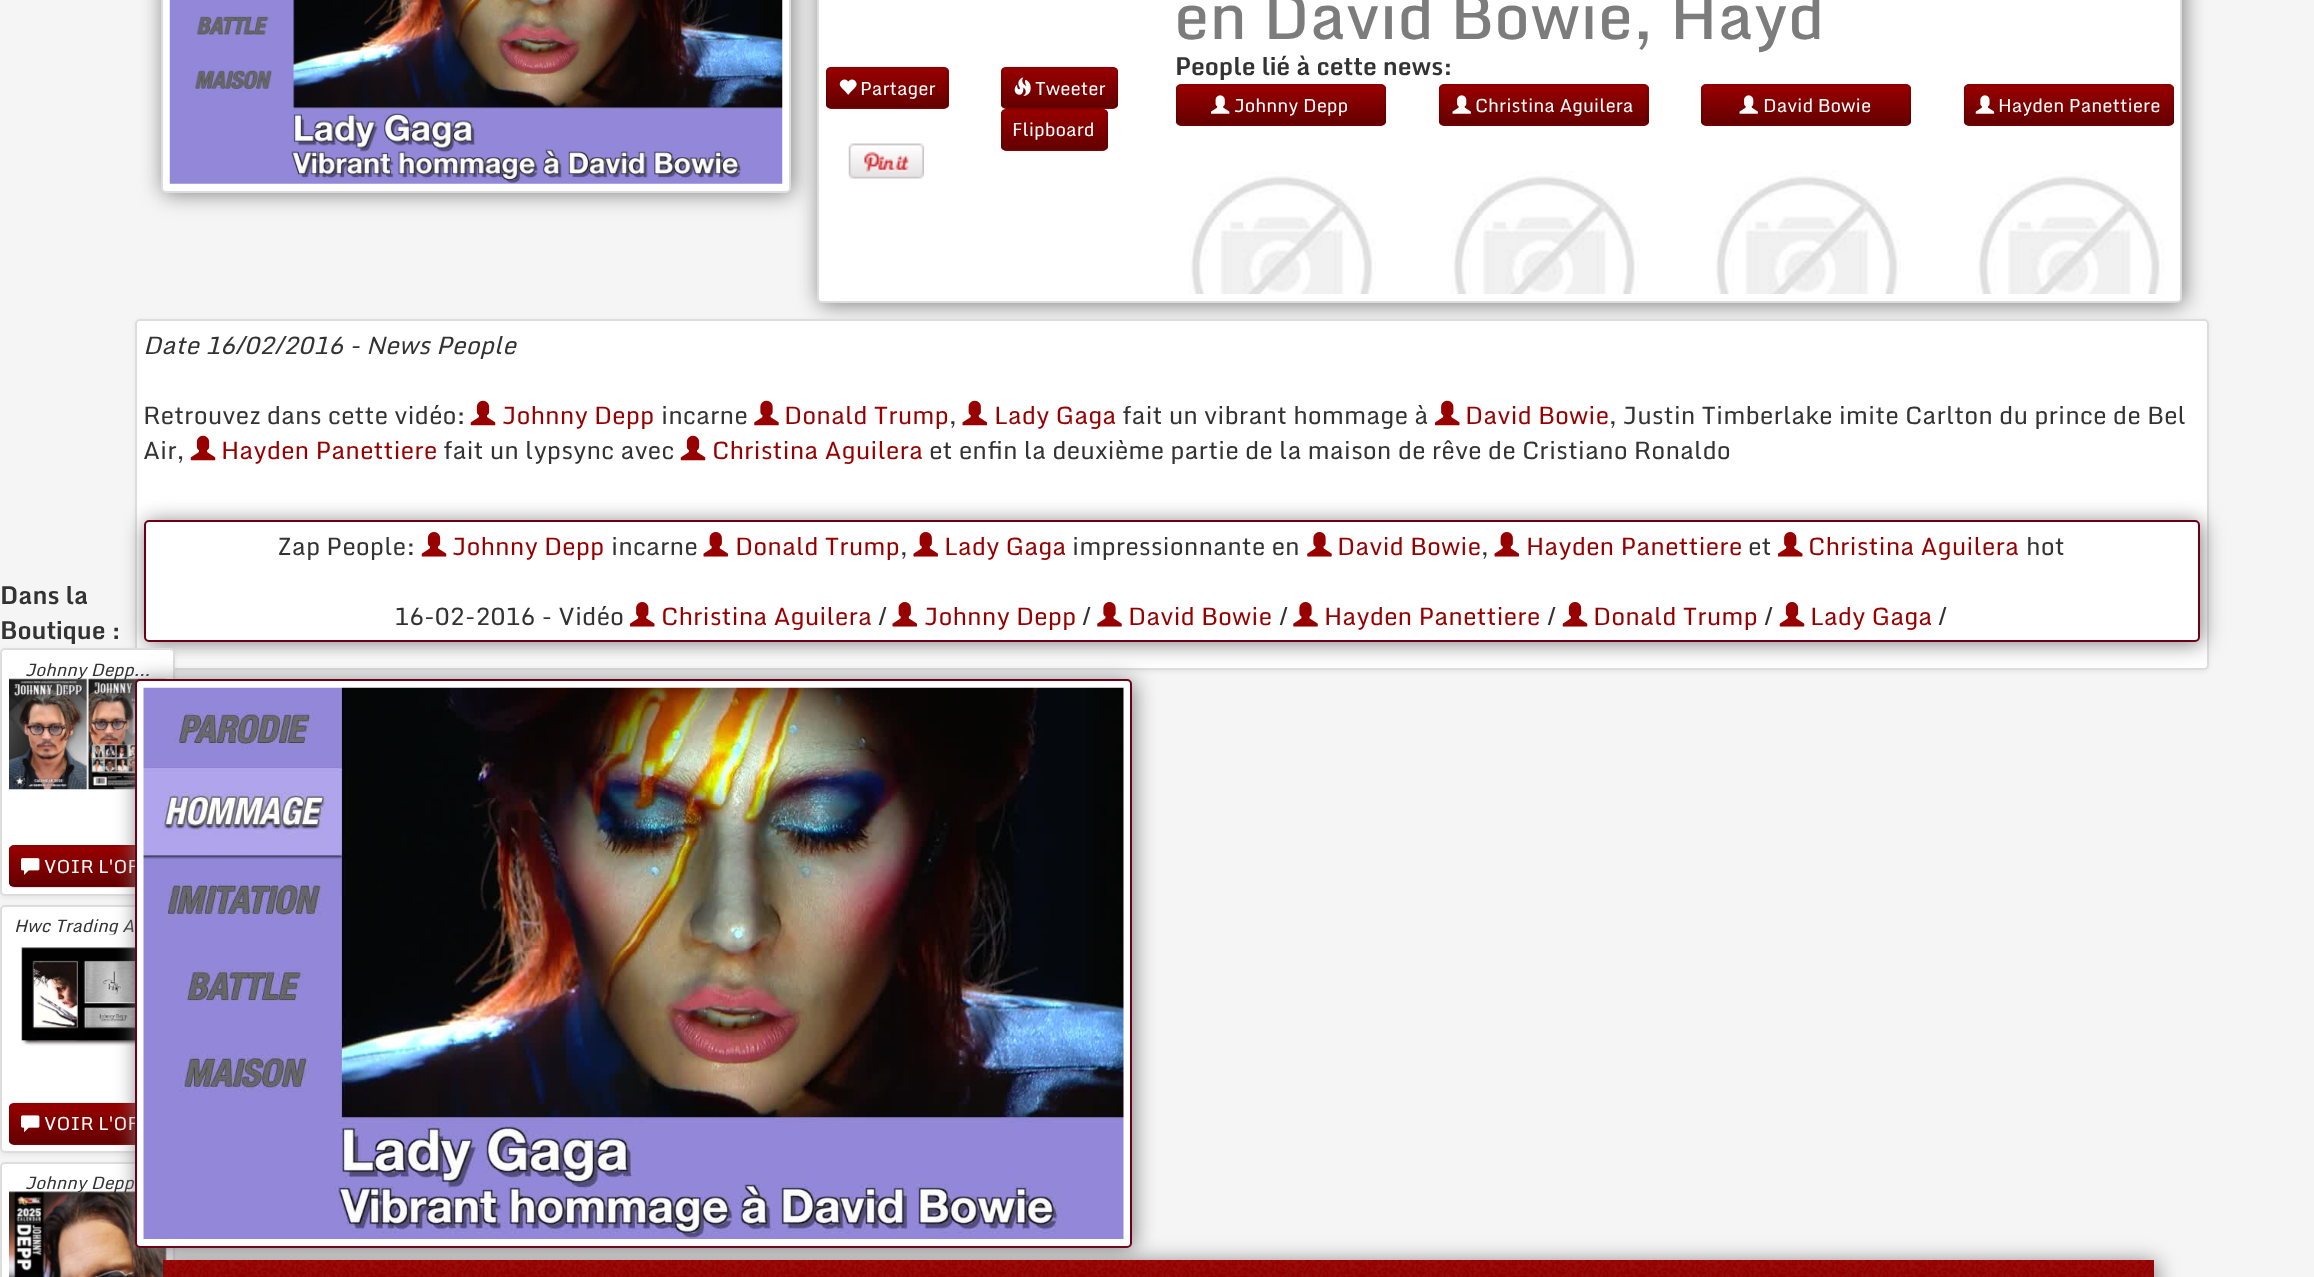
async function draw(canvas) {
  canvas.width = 2314;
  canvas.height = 1277;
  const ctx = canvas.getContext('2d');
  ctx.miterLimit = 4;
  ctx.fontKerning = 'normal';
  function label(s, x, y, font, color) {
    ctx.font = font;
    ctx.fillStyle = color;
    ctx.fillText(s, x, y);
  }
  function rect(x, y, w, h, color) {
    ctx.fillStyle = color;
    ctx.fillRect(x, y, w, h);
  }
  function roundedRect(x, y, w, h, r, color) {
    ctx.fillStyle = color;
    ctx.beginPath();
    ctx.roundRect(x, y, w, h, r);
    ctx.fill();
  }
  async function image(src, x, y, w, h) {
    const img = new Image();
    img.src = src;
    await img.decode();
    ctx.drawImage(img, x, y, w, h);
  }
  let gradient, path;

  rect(0, 0, 2314, 1277, '#f5f5f5');
  ctx.fillStyle = '#808080';
  ctx.filter = 'blur(10.5px)';
  ctx.beginPath();
  ctx.roundRect(163, -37, 630, 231, 5);
  ctx.fill();
  ctx.filter = 'none';
  ctx.fillStyle = '#fff';
  ctx.beginPath();
  ctx.roundRect(162, -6, 628, 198, 4);
  ctx.fill();
  ctx.strokeStyle = '#ddd';
  ctx.lineWidth = 2;
  ctx.stroke();
  await image('assets/img1.png', 169, 0, 614, 184);
  ctx.fillStyle = '#808080';
  ctx.filter = 'blur(10.5px)';
  ctx.beginPath();
  ctx.roundRect(819, -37, 1365, 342, 5);
  ctx.fill();
  ctx.filter = 'none';
  ctx.fillStyle = '#fff';
  ctx.beginPath();
  ctx.roundRect(818, -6, 1363, 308, 4);
  ctx.fill();
  ctx.stroke();
  label('en David Bowie, Hayd', 1174, 39, '500 63px Monda', '#7c7c7c');
  roundedRect(826, 67, 123, 42, 5, '#980000');
  ctx.save();
  ctx.beginPath();
  ctx.roundRect(826, 67, 123, 42, 5);
  ctx.clip();
  gradient = ctx.createLinearGradient(887, 68, 887, 107);
  gradient.addColorStop(0, '#980000');
  gradient.addColorStop(1, '#650000');
  ctx.fillStyle = gradient;
  ctx.fillRect(826, 68, 123, 39);
  ctx.restore();
  path = new Path2D('M946.5 106.5C945.5 107 944.5 107.5 943 107.5H831C830 107.5 829 107 828 106.5');
  ctx.strokeStyle = '#00000040';
  ctx.lineWidth = 1.8;
  ctx.stroke(path);
  path = new Path2D('M828 106.5C825.5 103.5 827 96 827 93V77C827 73.5 826 67.5 831 67.5H924.5C951 67.5 947.5 63 947.5 87.5V98C947.5 100.5 948.5 104.5 946.5 106.5');
  ctx.strokeStyle = '#0000001a';
  ctx.stroke(path);
  await image('assets/img2.png', 839, 79, 18, 16);
  label('Partager', 860, 95, '18.4px Monda', '#fff');
  roundedRect(1001, 67, 117, 42, 5, '#980000');
  ctx.save();
  ctx.beginPath();
  ctx.roundRect(1001, 67, 117, 42, 5);
  ctx.clip();
  gradient = ctx.createLinearGradient(1060, 68, 1060, 107);
  gradient.addColorStop(0, '#980000');
  gradient.addColorStop(1, '#650000');
  ctx.fillStyle = gradient;
  ctx.fillRect(1001, 68, 117, 39);
  ctx.restore();
  path = new Path2D('M1116 106.5C1115.5 107 1114 107.5 1113 107.5H1006C1005 107.5 1004 107 1003 106.5');
  ctx.strokeStyle = '#00000040';
  ctx.stroke(path);
  path = new Path2D('M1003 106.5C1000.5 103.5 1002 96 1002 93V77C1002 73.5 1001 67.5 1006 67.5H1095C1121 67.5 1117.5 63.5 1117.5 87.5V98C1117.5 100.5 1118 104.5 1116 106.5');
  ctx.strokeStyle = '#0000001a';
  ctx.stroke(path);
  await image('assets/img3.png', 1014, 77, 17, 19);
  label('Tweeter', 1035, 95, '18.4px Monda', '#fff');
  roundedRect(1001, 109, 107, 42, 5, '#980000');
  ctx.save();
  ctx.beginPath();
  ctx.roundRect(1001, 109, 107, 42, 5);
  ctx.clip();
  gradient = ctx.createLinearGradient(1054, 110, 1054, 149);
  gradient.addColorStop(0, '#980000');
  gradient.addColorStop(1, '#650000');
  ctx.fillStyle = gradient;
  ctx.fillRect(1001, 110, 107, 39);
  ctx.restore();
  path = new Path2D('M1105.5 148.5L1103 149.5H1006L1003 148.5');
  ctx.strokeStyle = '#00000040';
  ctx.stroke(path);
  path = new Path2D('M1003 148.5C1001 146.5 1002 142.5 1002 140V129.5C1002 106 998 109.5 1022.5 109.5H1086.5C1110.5 109.5 1107 106 1107 129.5V140C1107 142.5 1107.5 146.5 1105.5 148.5');
  ctx.strokeStyle = '#0000001a';
  ctx.stroke(path);
  label('Flipboard', 1012, 136, '18.4px Monda', '#fff');
  await image('assets/img4.png', 848, 143, 76, 36);
  label('People lié à cette news:', 1175, 75, 'bold 24.5px Monda', '#333');
  roundedRect(1176, 84, 210, 42, 5, '#980000');
  ctx.save();
  ctx.beginPath();
  ctx.roundRect(1176, 84, 210, 42, 5);
  ctx.clip();
  gradient = ctx.createLinearGradient(1281, 86, 1281, 124);
  gradient.addColorStop(0, '#980000');
  gradient.addColorStop(1, '#650000');
  ctx.fillStyle = gradient;
  ctx.fillRect(1176, 86, 210, 38);
  ctx.restore();
  path = new Path2D('M1384 124C1383 124.5 1382 125 1381 125H1181C1180 125 1179 124.5 1178 124');
  ctx.strokeStyle = '#00000040';
  ctx.stroke(path);
  path = new Path2D('M1178 124C1177.5 123 1177 122 1177 121V89C1177 88 1177.5 87 1178 86C1179 85.5 1180 85 1181 85H1381C1382 85 1383 85.5 1384 86C1384.5 87 1385 88 1385 89V121C1385 122 1384.5 123 1384 124');
  ctx.strokeStyle = '#0000001a';
  ctx.stroke(path);
  await image('assets/img5.png', 1211, 95, 19, 19);
  label('Johnny Depp', 1234, 112, '18.4px Monda', '#fff');
  await image('assets/img6.png', 1189, 171, 187, 123);
  roundedRect(1439, 84, 210, 42, 5, '#980000');
  ctx.save();
  ctx.beginPath();
  ctx.roundRect(1439, 84, 210, 42, 5);
  ctx.clip();
  gradient = ctx.createLinearGradient(1544, 86, 1544, 124);
  gradient.addColorStop(0, '#980000');
  gradient.addColorStop(1, '#650000');
  ctx.fillStyle = gradient;
  ctx.fillRect(1439, 86, 210, 38);
  ctx.restore();
  path = new Path2D('M1646.5 124C1645.5 124.5 1644.5 125 1643 125H1444C1442.5 125 1441.5 124.5 1440.5 124');
  ctx.strokeStyle = '#00000040';
  ctx.stroke(path);
  path = new Path2D('M1440.5 124C1440 123 1439.5 122 1439.5 121V89C1439.5 88 1440 87 1440.5 86C1441.5 85.5 1442.5 85 1444 85H1643C1644.5 85 1645.5 85.5 1646.5 86C1647 87 1647.5 88 1647.5 89V121C1647.5 122 1647 123 1646.5 124');
  ctx.strokeStyle = '#0000001a';
  ctx.stroke(path);
  await image('assets/img7.png', 1452, 95, 19, 19);
  label('Christina Aguilera', 1475, 112, '18.4px Monda', '#fff');
  await image('assets/img8.png', 1451, 171, 189, 123);
  roundedRect(1701, 84, 210, 42, 5, '#980000');
  ctx.save();
  ctx.beginPath();
  ctx.roundRect(1701, 84, 210, 42, 5);
  ctx.clip();
  gradient = ctx.createLinearGradient(1806, 86, 1806, 124);
  gradient.addColorStop(0, '#980000');
  gradient.addColorStop(1, '#650000');
  ctx.fillStyle = gradient;
  ctx.fillRect(1701, 86, 210, 38);
  ctx.restore();
  path = new Path2D('M1909 124C1908 124.5 1907 125 1906 125H1706C1705 125 1704 124.5 1703 124');
  ctx.strokeStyle = '#00000040';
  ctx.stroke(path);
  path = new Path2D('M1703 124C1702.5 123 1702 122 1702 121V89C1702 88 1702.5 87 1703 86C1704 85.5 1705 85 1706 85H1906C1907 85 1908 85.5 1909 86C1909.5 87 1910 88 1910 89V121C1910 122 1909.5 123 1909 124');
  ctx.strokeStyle = '#0000001a';
  ctx.stroke(path);
  await image('assets/img7.png', 1739, 95, 19, 19);
  label('David Bowie', 1763, 112, '18.4px Monda', '#fff');
  await image('assets/img9.png', 1714, 171, 187, 123);
  roundedRect(1964, 84, 210, 42, 5, '#980000');
  ctx.save();
  ctx.beginPath();
  ctx.roundRect(1964, 84, 210, 42, 5);
  ctx.clip();
  gradient = ctx.createLinearGradient(2069, 86, 2069, 124);
  gradient.addColorStop(0, '#980000');
  gradient.addColorStop(1, '#650000');
  ctx.fillStyle = gradient;
  ctx.fillRect(1964, 86, 210, 38);
  ctx.restore();
  path = new Path2D('M2171.5 124C2170.5 124.5 2169.5 125 2168 125H1969C1967.5 125 1966.5 124.5 1965.5 124');
  ctx.strokeStyle = '#00000040';
  ctx.stroke(path);
  path = new Path2D('M1965.5 124C1965 123 1964.5 122 1964.5 121V89C1964.5 88 1965 87 1965.5 86C1966.5 85.5 1967.5 85 1969 85H2168C2169.5 85 2170.5 85.5 2171.5 86C2172 87 2172.5 88 2172.5 89V121C2172.5 122 2172 123 2171.5 124');
  ctx.strokeStyle = '#0000001a';
  ctx.stroke(path);
  await image('assets/img10.png', 1975, 95, 20, 19);
  label('Hayden Panettiere', 1998, 112, '18.4px Monda', '#fff');
  await image('assets/img8.png', 1976, 171, 189, 123);
  ctx.fillStyle = '#0000000f';
  ctx.filter = 'blur(2.5px)';
  ctx.beginPath();
  ctx.roundRect(135, 320, 2074, 352, 5);
  ctx.fill();
  ctx.filter = 'none';
  ctx.fillStyle = '#fff';
  ctx.beginPath();
  ctx.roundRect(136, 320, 2072, 349, 4);
  ctx.fill();
  ctx.strokeStyle = '#ddd';
  ctx.lineWidth = 2;
  ctx.stroke();
  label('Date 16/02/2016 - News People', 143, 354, 'italic 24.5px Monda', '#333');
  label('Retrouvez dans cette vidéo:', 143, 424, '24.5px Monda', '#333');
  await image('assets/img11.png', 470, 400, 26, 26);
  label('Johnny Depp', 502, 424, '24.5px Monda', '#980000');
  label('incarne', 661, 424, '24.5px Monda', '#333');
  await image('assets/img12.png', 754, 400, 25, 26);
  label('Donald Trump', 784, 424, '24.5px Monda', '#980000');
  label(',', 949, 424, '24.5px Monda', '#333');
  await image('assets/img13.png', 962, 400, 25, 26);
  label('Lady Gaga', 994, 424, '24.5px Monda', '#980000');
  label('fait un vibrant hommage à', 1122, 424, '24.5px Monda', '#333');
  await image('assets/img14.png', 1435, 400, 25, 26);
  label('David Bowie', 1465, 424, '24.5px Monda', '#980000');
  label(', Justin Timberlake imite Carlton du prince de Bel', 1609, 424, '24.5px Monda', '#333');
  label('Air,', 143, 459, '24.5px Monda', '#333');
  await image('assets/img11.png', 190, 435, 26, 26);
  label('Hayden Panettiere', 221, 459, '24.5px Monda', '#980000');
  label('fait un lypsync avec', 443, 459, '24.5px Monda', '#333');
  await image('assets/img11.png', 680, 435, 26, 26);
  label('Christina Aguilera', 712, 459, '24.5px Monda', '#980000');
  label('et enfin la deuxième partie de la maison de rêve de Cristiano Ronaldo', 929, 459, '24.5px Monda', '#333');
  ctx.fillStyle = '#808080';
  ctx.filter = 'blur(10.5px)';
  ctx.beginPath();
  ctx.roundRect(145, 522, 2057, 122, 5);
  ctx.fill();
  ctx.filter = 'none';
  ctx.fillStyle = '#fff';
  ctx.beginPath();
  ctx.roundRect(145, 521, 2054, 120, 4);
  ctx.fill();
  ctx.strokeStyle = '#6d0019';
  ctx.stroke();
  label('Zap People:', 277, 555, '24.5px Monda', '#333');
  await image('assets/img15.png', 421, 532, 26, 25);
  label('Johnny Depp', 452, 555, '24.5px Monda', '#980000');
  label('incarne', 611, 555, '24.5px Monda', '#333');
  await image('assets/img16.png', 703, 532, 25, 25);
  label('Donald Trump', 735, 555, '24.5px Monda', '#980000');
  label(',', 900, 555, '24.5px Monda', '#333');
  await image('assets/img16.png', 913, 532, 25, 25);
  label('Lady Gaga', 944, 555, '24.5px Monda', '#980000');
  label('impressionnante en', 1072, 555, '24.5px Monda', '#333');
  await image('assets/img17.png', 1307, 532, 25, 25);
  label('David Bowie', 1337, 555, '24.5px Monda', '#980000');
  label(',', 1481, 555, '24.5px Monda', '#333');
  await image('assets/img16.png', 1494, 532, 25, 25);
  label('Hayden Panettiere', 1526, 555, '24.5px Monda', '#980000');
  label('et', 1748, 555, '24.5px Monda', '#333');
  await image('assets/img18.png', 1778, 532, 25, 25);
  label('Christina Aguilera', 1808, 555, '24.5px Monda', '#980000');
  label('hot', 2026, 555, '24.5px Monda', '#333');
  label('16-02-2016 - Vidéo', 394, 625, '24.5px Monda', '#333');
  await image('assets/img18.png', 630, 602, 25, 25);
  label('Christina Aguilera', 661, 625, '24.5px Monda', '#980000');
  label('/', 878, 625, '24.5px Monda', '#333');
  await image('assets/img16.png', 892, 602, 25, 25);
  label('Johnny Depp', 924, 625, '24.5px Monda', '#980000');
  label('/', 1082, 625, '24.5px Monda', '#333');
  await image('assets/img17.png', 1097, 602, 25, 25);
  label('David Bowie', 1128, 625, '24.5px Monda', '#980000');
  label('/', 1279, 625, '24.5px Monda', '#333');
  await image('assets/img17.png', 1293, 602, 25, 25);
  label('Hayden Panettiere', 1324, 625, '24.5px Monda', '#980000');
  label('/', 1547, 625, '24.5px Monda', '#333');
  await image('assets/img15.png', 1562, 602, 26, 25);
  label('Donald Trump', 1593, 625, '24.5px Monda', '#980000');
  label('/', 1764, 625, '24.5px Monda', '#333');
  await image('assets/img15.png', 1779, 602, 26, 25);
  label('Lady Gaga', 1810, 625, '24.5px Monda', '#980000');
  label('/', 1938, 625, '24.5px Monda', '#333');
  label('Dans la', 0, 604, 'bold 24.5px Monda', '#333');
  label('Boutique :', 0, 639, 'bold 24.5px Monda', '#333');
  ctx.fillStyle = '#0000000f';
  ctx.filter = 'blur(2.5px)';
  ctx.beginPath();
  ctx.roundRect(0, 649, 175, 249, 5);
  ctx.fill();
  ctx.filter = 'none';
  ctx.fillStyle = '#fff';
  ctx.beginPath();
  ctx.roundRect(1, 649, 173, 246, 4);
  ctx.fill();
  ctx.strokeStyle = '#ddd';
  ctx.stroke();
  label('Johnny Depp...', 25, 676, 'italic 17.5px Monda', '#333');
  await image('assets/img19.png', 9, 678, 158, 112);
  roundedRect(9, 845, 157, 42, 5, '#980000');
  ctx.save();
  ctx.beginPath();
  ctx.roundRect(9, 845, 157, 42, 5);
  ctx.clip();
  gradient = ctx.createLinearGradient(88, 847, 88, 886);
  gradient.addColorStop(0, '#980000');
  gradient.addColorStop(1, '#650000');
  ctx.fillStyle = gradient;
  ctx.fillRect(9, 847, 126, 39);
  ctx.restore();
  path = new Path2D('M164 885C163.5 886 162 886.5 161 886.5H14C13 886.5 11.5 886 11 885');
  ctx.strokeStyle = '#00000040';
  ctx.lineWidth = 1.8;
  ctx.stroke(path);
  path = new Path2D('M11 885C10 884.5 9.5 883 9.5 882V850.5C9.5 849.5 10 848 11 847.5C11.5 846.5 13 846 14 846H161C162 846 163.5 846.5 164 847.5C165 848 165.5 849.5 165.5 850.5V882C165.5 883 165 884.5 164 885');
  ctx.strokeStyle = '#0000001a';
  ctx.stroke(path);
  await image('assets/img20.png', 21, 858, 19, 17);
  label('VOIR L\'OF', 44, 873, '18.4px Monda', '#fff');
  ctx.fillStyle = '#0000000f';
  ctx.filter = 'blur(2.5px)';
  ctx.beginPath();
  ctx.roundRect(0, 907, 175, 248, 5);
  ctx.fill();
  ctx.filter = 'none';
  ctx.fillStyle = '#fff';
  ctx.beginPath();
  ctx.roundRect(1, 906, 173, 246, 4);
  ctx.fill();
  ctx.strokeStyle = '#ddd';
  ctx.lineWidth = 2;
  ctx.stroke();
  label('Hwc Trading A', 14, 932, 'italic 17.5px Monda', '#333');
  await image('assets/img21.png', 21, 934, 114, 112);
  roundedRect(9, 1103, 157, 42, 5, '#980000');
  ctx.save();
  ctx.beginPath();
  ctx.roundRect(9, 1103, 157, 42, 5);
  ctx.clip();
  gradient = ctx.createLinearGradient(88, 1104, 88, 1143);
  gradient.addColorStop(0, '#980000');
  gradient.addColorStop(1, '#650000');
  ctx.fillStyle = gradient;
  ctx.fillRect(9, 1104, 126, 39);
  ctx.restore();
  path = new Path2D('M164 1142.5C163.5 1143 162 1143.5 161 1143.5H14C13 1143.5 11.5 1143 11 1142.5');
  ctx.strokeStyle = '#00000040';
  ctx.lineWidth = 1.8;
  ctx.stroke(path);
  path = new Path2D('M11 1142.5C10 1141.5 9.5 1140.5 9.5 1139V1108C9.5 1106.5 10 1105.5 11 1104.5C11.5 1104 13 1103.5 14 1103.5H161C162 1103.5 163.5 1104 164 1104.5C165 1105.5 165.5 1106.5 165.5 1108V1139C165.5 1140.5 165 1141.5 164 1142.5');
  ctx.strokeStyle = '#0000001a';
  ctx.stroke(path);
  await image('assets/img22.png', 21, 1115, 19, 18);
  label('VOIR L\'OF', 44, 1130, '18.4px Monda', '#fff');
  ctx.fillStyle = '#0000000f';
  ctx.filter = 'blur(2.5px)';
  ctx.beginPath();
  ctx.roundRect(0, 1164, 175, 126, 5);
  ctx.fill();
  ctx.filter = 'none';
  ctx.fillStyle = '#fff';
  ctx.beginPath();
  ctx.roundRect(1, 1163, 173, 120, 4);
  ctx.fill();
  ctx.strokeStyle = '#ddd';
  ctx.lineWidth = 2;
  ctx.stroke();
  label('Johnny Depp', 25, 1189, 'italic 17.5px Monda', '#333');
  await image('assets/img23.png', 9, 1191, 158, 86);
  ctx.fillStyle = '#808080';
  ctx.filter = 'blur(10.5px)';
  ctx.beginPath();
  ctx.roundRect(137, 681, 997, 569, 5);
  ctx.fill();
  ctx.filter = 'none';
  ctx.fillStyle = '#fff';
  ctx.beginPath();
  ctx.roundRect(136, 680, 995, 567, 4);
  ctx.fill();
  ctx.strokeStyle = '#6d0019';
  ctx.stroke();
  await image('assets/img24.png', 143, 687, 981, 552);
  gradient = ctx.createLinearGradient(1159, 1260, 1159, 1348);
  gradient.addColorStop(0, '#980000');
  gradient.addColorStop(1, '#650000');
  ctx.fillStyle = gradient;
  ctx.fillRect(163, 1260, 1991, 17);
  ctx.save();
  path = new Path2D('M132 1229H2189V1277H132ZM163 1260H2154V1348H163Z');
  ctx.clip(path, 'evenodd');
  ctx.fillStyle = '#808080';
  ctx.filter = 'blur(10.5px)';
  ctx.beginPath();
  ctx.rect(165, 1262, 1991, 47);
  ctx.fill();
  ctx.filter = 'none';
  ctx.restore();
  await image('assets/img25.png', 163, 1260, 1991, 17);
}

draw(document.querySelector('canvas'));
